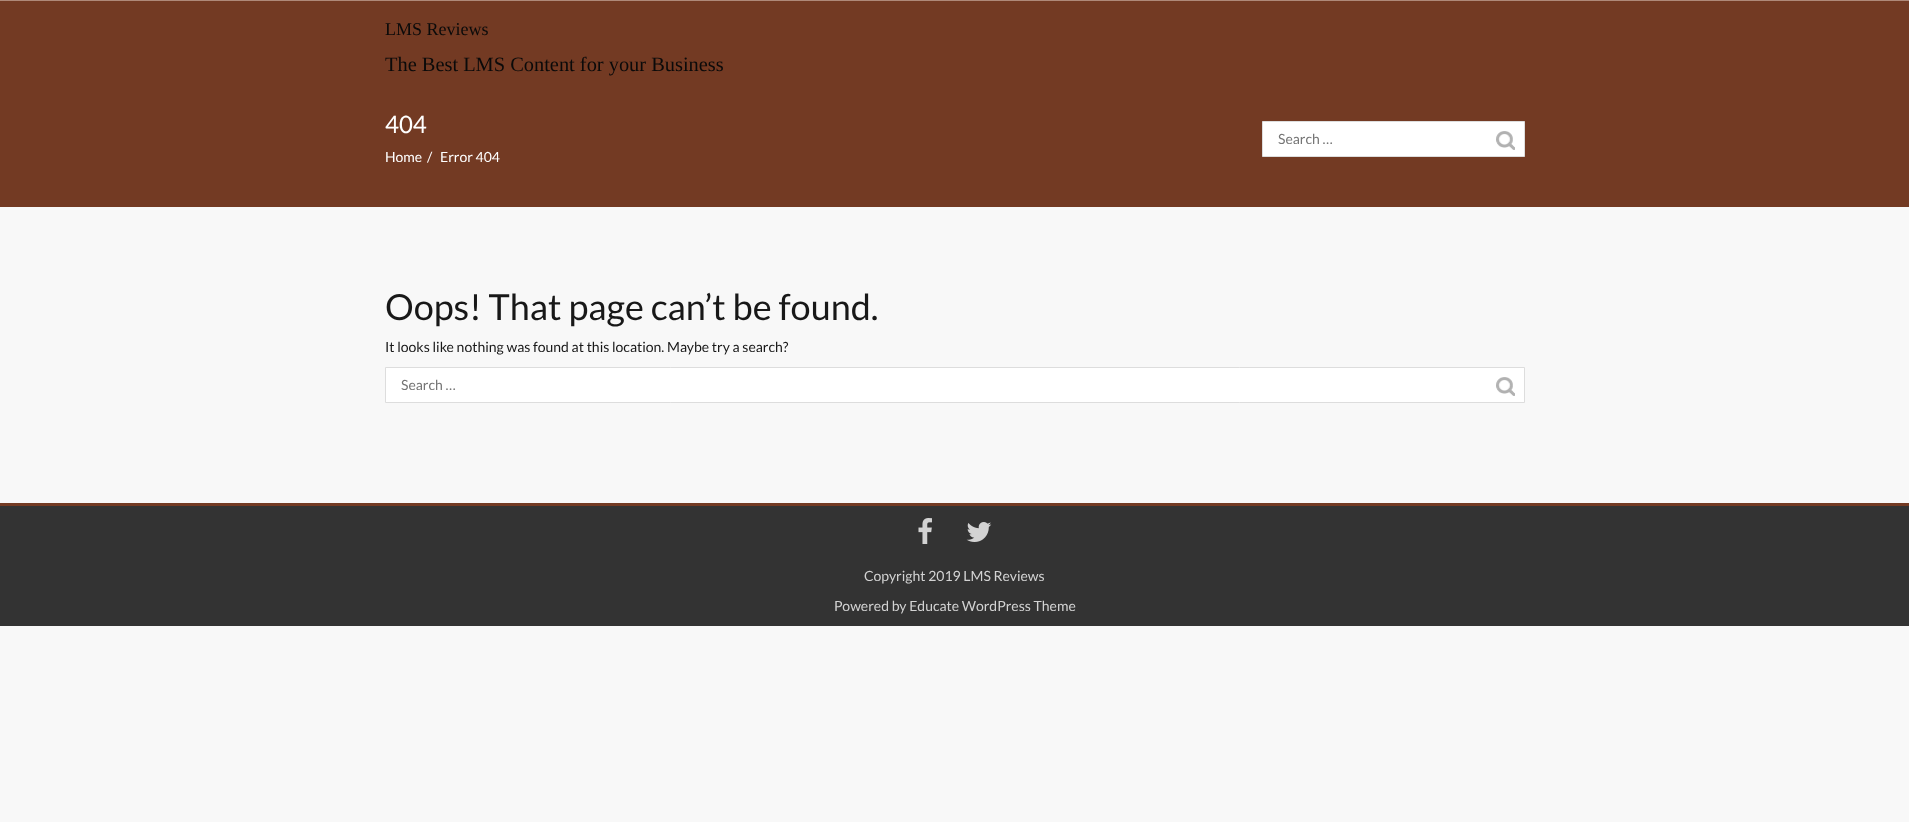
async function draw(canvas) {
  canvas.width = 1909;
  canvas.height = 822;
  const ctx = canvas.getContext('2d');
  ctx.miterLimit = 4;
  ctx.fontKerning = 'normal';
  function label(s, x, y, font, color) {
    ctx.font = font;
    ctx.fillStyle = color;
    ctx.fillText(s, x, y);
  }
  function rect(x, y, w, h, color) {
    ctx.fillStyle = color;
    ctx.fillRect(x, y, w, h);
  }
  async function image(src, x, y, w, h) {
    const img = new Image();
    img.src = src;
    await img.decode();
    ctx.drawImage(img, x, y, w, h);
  }

  rect(0, 0, 1909, 822, '#f8f8f8');
  rect(0, 1, 1909, 206, '#733a23');
  label('LMS Reviews', 385, 35, '18px Liberation Serif', '#0a0a0a');
  label('The Best LMS Content for your Business', 385, 71, '20.4px Liberation Serif', '#0a0a0a');
  rect(0, 0, 1909, 1, '#af8979');
  label('404', 385, 133, '24px Lato', '#fff');
  label('Home', 385, 162, '14px Lato', '#fff');
  label('/', 427, 162, '14px Lato', '#fff');
  label('Error 404', 440, 162, '14px Lato', '#fff');
  ctx.beginPath();
  ctx.rect(1262.5, 121.5, 262, 35);
  ctx.fill();
  ctx.strokeStyle = '#ddd';
  ctx.stroke();
  label('Search …', 1278, 144, '14px Lato', '#757575');
  await image('assets/img1.png', 1496, 131, 19, 19);
  label('Oops! That page can’t be found.', 385, 320, '36px Lato', '#181818');
  label('It looks like nothing was found at this location. Maybe try a search?', 385, 352, '14px Lato', '#181818');
  ctx.fillStyle = '#fff';
  ctx.beginPath();
  ctx.rect(385.5, 367.5, 1139, 35);
  ctx.fill();
  ctx.stroke();
  label('Search …', 401, 390, '14px Lato', '#757575');
  await image('assets/img1.png', 1496, 377, 19, 19);
  rect(0, 506, 1909, 120, '#333');
  rect(0, 503, 1909, 3, '#733a23');
  await image('assets/img2.png', 918, 518, 14, 26);
  await image('assets/img3.png', 966, 522, 26, 20);
  label('Copyright 2019 LMS Reviews', 864, 581, '14px Lato', '#d3d3d3');
  label('Powered by Educate WordPress Theme', 834, 611, '14px Lato', '#d3d3d3');
}

draw(document.querySelector('canvas'));
